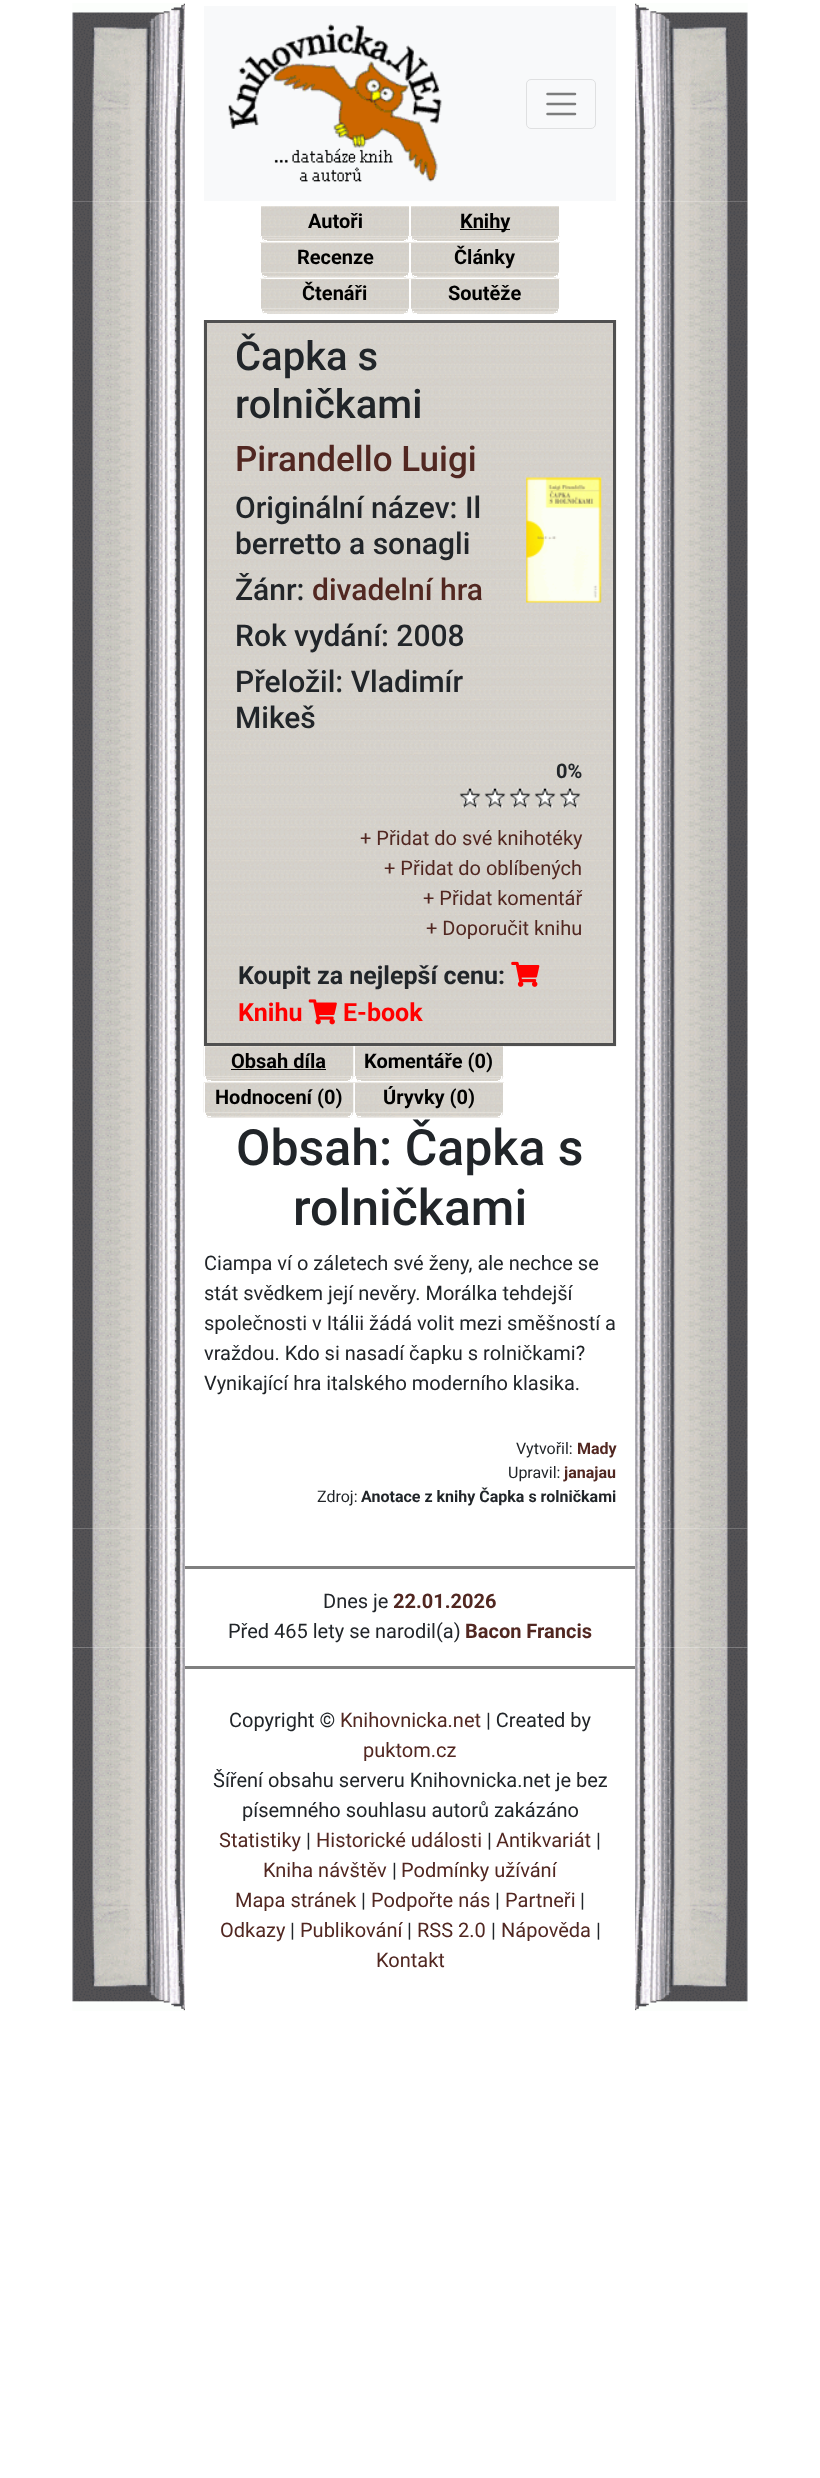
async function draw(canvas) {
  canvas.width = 820;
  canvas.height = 2478;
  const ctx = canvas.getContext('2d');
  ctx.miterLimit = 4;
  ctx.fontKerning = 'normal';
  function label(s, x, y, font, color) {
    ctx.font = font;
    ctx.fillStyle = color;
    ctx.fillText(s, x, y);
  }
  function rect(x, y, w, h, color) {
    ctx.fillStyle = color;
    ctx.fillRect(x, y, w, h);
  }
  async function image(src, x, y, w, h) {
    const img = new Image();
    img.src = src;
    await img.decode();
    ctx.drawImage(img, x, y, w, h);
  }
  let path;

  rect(0, 0, 820, 2478, '#fff');
  await image('assets/img1.png', 72, 3, 113, 199);
  rect(204, 6, 412, 195, '#f8f9fa');
  await image('assets/img2.png', 228, 23, 214, 159);
  ctx.beginPath();
  ctx.roundRect(526.5, 79.5, 69, 49, 4.5);
  ctx.strokeStyle = '#dfe0e1';
  ctx.stroke();
  path = new Path2D('M547.5 94H575M547.5 104H575M547.5 114H575');
  ctx.strokeStyle = '#7c7d7d';
  ctx.lineWidth = 2.5;
  ctx.lineCap = 'round';
  ctx.stroke(path);
  await image('assets/img3.png', 635, 3, 113, 199);
  await image('assets/img4.png', 72, 201, 113, 119);
  await image('assets/img5.png', 260, 206, 150, 31);
  rect(409, 206, 1, 30, '#fff');
  rect(260, 206, 1, 30, '#fff');
  label('Autoři', 308, 228, 'bold 20px Roboto', '#000');
  await image('assets/img6.png', 262, 236, 146, 3);
  rect(408, 236, 1, 3, '#fff');
  rect(261, 236, 1, 3, '#fff');
  await image('assets/img7.png', 262, 239, 146, 1);
  rect(406, 239, 1, 1, '#fff');
  rect(263, 239, 1, 1, '#fff');
  await image('assets/img8.png', 263, 240, 144, 2);
  rect(404, 240, 3, 1, '#fff');
  rect(264, 240, 3, 1, '#fff');
  rect(266, 241, 138, 1, '#fff');
  await image('assets/img5.png', 410, 206, 150, 31);
  rect(559, 206, 1, 30, '#fff');
  rect(410, 206, 1, 30, '#fff');
  rect(460, 229, 50, 1, '#000');
  label('Knihy', 460, 228, 'bold 20px Roboto', '#000');
  await image('assets/img6.png', 412, 236, 146, 3);
  rect(558, 236, 1, 3, '#fff');
  rect(411, 236, 1, 3, '#fff');
  await image('assets/img7.png', 412, 239, 146, 1);
  rect(556, 239, 1, 1, '#fff');
  rect(413, 239, 1, 1, '#fff');
  await image('assets/img8.png', 413, 240, 144, 2);
  rect(554, 240, 3, 1, '#fff');
  rect(414, 240, 3, 1, '#fff');
  rect(416, 241, 138, 1, '#fff');
  await image('assets/img9.png', 260, 242, 150, 31);
  rect(409, 243, 1, 30, '#fff');
  rect(260, 243, 1, 30, '#fff');
  label('Recenze', 297, 264, 'bold 20px Roboto', '#000');
  await image('assets/img10.png', 261, 272, 148, 3);
  rect(408, 273, 1, 3, '#fff');
  rect(261, 273, 1, 3, '#fff');
  await image('assets/img11.png', 262, 275, 146, 2);
  rect(406, 275, 1, 1, '#fff');
  rect(263, 275, 1, 1, '#fff');
  await image('assets/img12.png', 263, 276, 144, 2);
  rect(404, 276, 3, 1, '#fff');
  rect(264, 276, 3, 1, '#fff');
  await image('assets/img13.png', 260, 278, 150, 31);
  rect(266, 278, 138, 1, '#fff');
  await image('assets/img9.png', 410, 242, 150, 31);
  rect(559, 243, 1, 30, '#fff');
  rect(410, 243, 1, 30, '#fff');
  label('Články', 454, 264, 'bold 20px Roboto', '#000');
  await image('assets/img10.png', 411, 272, 148, 3);
  rect(558, 273, 1, 3, '#fff');
  rect(411, 273, 1, 3, '#fff');
  await image('assets/img11.png', 412, 275, 146, 2);
  rect(556, 275, 1, 1, '#fff');
  rect(413, 275, 1, 1, '#fff');
  await image('assets/img12.png', 413, 276, 144, 2);
  rect(554, 276, 3, 1, '#fff');
  rect(414, 276, 3, 1, '#fff');
  await image('assets/img13.png', 410, 278, 150, 31);
  rect(416, 278, 138, 1, '#fff');
  rect(409, 279, 1, 30, '#fff');
  rect(260, 279, 1, 30, '#fff');
  label('Čtenáři', 302, 300, 'bold 20px Roboto', '#000');
  await image('assets/img14.png', 262, 309, 146, 3);
  await image('assets/img15.png', 262, 311, 146, 2);
  rect(406, 311, 1, 1, '#fff');
  rect(263, 311, 1, 1, '#fff');
  await image('assets/img16.png', 263, 312, 144, 2);
  rect(404, 313, 3, 1, '#fff');
  rect(264, 313, 3, 1, '#fff');
  rect(559, 279, 1, 30, '#fff');
  rect(410, 279, 1, 30, '#fff');
  label('Soutěže', 448, 300, 'bold 20px Roboto', '#000');
  await image('assets/img14.png', 412, 309, 146, 3);
  await image('assets/img15.png', 412, 311, 146, 2);
  rect(556, 311, 1, 1, '#fff');
  rect(413, 311, 1, 1, '#fff');
  await image('assets/img16.png', 413, 312, 144, 2);
  rect(554, 313, 3, 1, '#fff');
  rect(414, 313, 3, 1, '#fff');
  await image('assets/img17.png', 635, 201, 113, 119);
  await image('assets/img18.png', 72, 320, 113, 1209);
  await image('assets/img19.png', 203, 320, 414, 727);
  ctx.strokeStyle = '#505050';
  ctx.lineWidth = 3;
  ctx.strokeRect(205.5, 321.5, 409, 723);
  label('Čapka s', 235, 370, '500 40px Roboto', '#212529');
  label('rolničkami', 235, 418, '500 40px Roboto', '#212529');
  label('Pirandello Luigi', 235, 471, '500 35px Roboto', '#512721');
  label('Originální název: Il', 235, 518, '500 30px Roboto', '#212529');
  label('berretto a sonagli', 235, 554, '500 30px Roboto', '#212529');
  label('Žánr:', 235, 600, '500 30px Roboto', '#212529');
  label('divadelní hra', 312, 600, '500 30px Roboto', '#512721');
  label('Rok vydání: 2008', 235, 646, '500 30px Roboto', '#212529');
  label('Přeložil: Vladimír', 235, 692, '500 30px Roboto', '#212529');
  label('Mikeš', 235, 728, '500 30px Roboto', '#212529');
  await image('assets/img20.png', 526, 477, 76, 126);
  label('0%', 556, 778, 'bold 20px Roboto', '#212529');
  await image('assets/img21.png', 459, 788, 122, 20);
  label('+ Přidat do své knihotéky', 360, 845, '20px Roboto', '#512721');
  label('+ Přidat do oblíbených', 384, 875, '20px Roboto', '#512721');
  label('+ Přidat komentář', 423, 905, '20px Roboto', '#512721');
  label('+ Doporučit knihu', 426, 935, '20px Roboto', '#512721');
  label('Koupit za nejlepší cenu:', 238, 984, 'bold 25px Roboto', '#212529');
  await image('assets/img22.png', 511, 961, 29, 26);
  label('Knihu', 238, 1021, 'bold 25px Roboto', '#f00');
  await image('assets/img23.png', 308, 999, 29, 26);
  label('E-book', 343, 1021, 'bold 25px Roboto', '#f00');
  await image('assets/img24.png', 203, 1046, 151, 31);
  rect(353, 1046, 1, 30, '#fff');
  rect(204, 1046, 1, 30, '#fff');
  label('Obsah díla', 231, 1068, 'bold 20px Roboto', '#000');
  rect(231, 1069, 95, 1, '#000');
  await image('assets/img25.png', 206, 1076, 147, 3);
  rect(351, 1076, 1, 3, '#fff');
  rect(205, 1076, 1, 3, '#fff');
  await image('assets/img26.png', 207, 1079, 145, 1);
  rect(350, 1079, 1, 1, '#fff');
  await image('assets/img27.png', 207, 1080, 143, 2);
  rect(348, 1080, 3, 1, '#fff');
  rect(208, 1080, 3, 1, '#fff');
  rect(210, 1081, 138, 1, '#fff');
  await image('assets/img28.png', 353, 1046, 151, 31);
  rect(503, 1046, 1, 30, '#fff');
  rect(354, 1046, 1, 30, '#fff');
  label('Komentáře (0)', 364, 1068, 'bold 20px Roboto', '#000');
  await image('assets/img25.png', 356, 1076, 147, 3);
  rect(501, 1076, 1, 3, '#fff');
  rect(355, 1076, 1, 3, '#fff');
  await image('assets/img26.png', 357, 1079, 145, 1);
  rect(500, 1079, 1, 1, '#fff');
  await image('assets/img27.png', 357, 1080, 143, 2);
  rect(498, 1080, 3, 1, '#fff');
  rect(358, 1080, 3, 1, '#fff');
  rect(360, 1081, 138, 1, '#fff');
  await image('assets/img29.png', 203, 1082, 151, 31);
  rect(353, 1083, 1, 30, '#fff');
  rect(204, 1083, 1, 30, '#fff');
  label('Hodnocení (0)', 215, 1104, 'bold 20px Roboto', '#000');
  await image('assets/img30.png', 205, 1112, 148, 3);
  rect(351, 1113, 1, 3, '#fff');
  rect(205, 1113, 1, 3, '#fff');
  await image('assets/img31.png', 206, 1115, 146, 2);
  rect(350, 1115, 1, 1, '#fff');
  rect(206, 1115, 1, 1, '#fff');
  await image('assets/img32.png', 207, 1116, 143, 2);
  rect(348, 1116, 3, 1, '#fff');
  rect(208, 1116, 3, 1, '#fff');
  await image('assets/img33.png', 353, 1082, 151, 31);
  rect(503, 1083, 1, 30, '#fff');
  rect(354, 1083, 1, 30, '#fff');
  label('Úryvky (0)', 383, 1104, 'bold 20px Roboto', '#000');
  await image('assets/img30.png', 355, 1112, 148, 3);
  rect(501, 1113, 1, 3, '#fff');
  rect(355, 1113, 1, 3, '#fff');
  await image('assets/img31.png', 356, 1115, 146, 2);
  rect(500, 1115, 1, 1, '#fff');
  rect(356, 1115, 1, 1, '#fff');
  await image('assets/img32.png', 357, 1116, 143, 2);
  rect(498, 1116, 3, 1, '#fff');
  rect(358, 1116, 3, 1, '#fff');
  label('Obsah: Čapka s', 236, 1165, '500 50px Roboto', '#212529');
  label('rolničkami', 293, 1225, '500 50px Roboto', '#212529');
  label('Ciampa ví o záletech své ženy, ale nechce se', 204, 1270, '20px Roboto', '#212529');
  label('stát svědkem její nevěry. Morálka tehdejší', 204, 1300, '20px Roboto', '#212529');
  label('společnosti v Itálii žádá volit mezi směšností a', 204, 1330, '20px Roboto', '#212529');
  label('vraždou. Kdo si nasadí čapku s rolničkami?', 204, 1360, '20px Roboto', '#212529');
  label('Vynikající hra italského moderního klasika.', 204, 1390, '20px Roboto', '#212529');
  label('Vytvořil:', 516, 1454, '16px Roboto', '#212529');
  label('Mady', 577, 1454, 'bold 16px Roboto', '#512721');
  label('Upravil:', 508, 1478, '16px Roboto', '#212529');
  label('janajau', 564, 1478, 'bold 16px Roboto', '#512721');
  label('Zdroj:', 317, 1502, '16px Roboto', '#212529');
  label('Anotace z knihy Čapka s rolničkami', 361, 1502, 'bold 16px Roboto', '#212529');
  await image('assets/img34.png', 635, 320, 113, 1209);
  await image('assets/img35.png', 72, 1528, 113, 120);
  rect(185, 1566, 450, 3, '#808080');
  label('Dnes je', 323, 1608, '20px Roboto', '#212529');
  label('22.01.2026', 393, 1608, 'bold 20px Roboto', '#512721');
  label('Před 465 lety se narodil(a)', 228, 1638, '20px Roboto', '#212529');
  label('Bacon Francis', 465, 1638, 'bold 20px Roboto', '#512721');
  await image('assets/img36.png', 635, 1528, 113, 120);
  await image('assets/img37.png', 72, 1647, 113, 364);
  rect(185, 1666, 450, 3, '#808080');
  label('Copyright ©', 229, 1727, '20px Roboto', '#212529');
  label('Knihovnicka.net', 340, 1727, '20px Roboto', '#512721');
  label('| Created by', 486, 1727, '20px Roboto', '#212529');
  label('puktom.cz', 363, 1757, '20px Roboto', '#512721');
  label('Šíření obsahu serveru Knihovnicka.net je bez', 213, 1787, '20px Roboto', '#212529');
  label('písemného souhlasu autorů zakázáno', 242, 1817, '20px Roboto', '#212529');
  label('Statistiky', 219, 1847, '20px Roboto', '#512721');
  label('|', 306, 1847, '20px Roboto', '#212529');
  label('Historické události', 316, 1847, '20px Roboto', '#512721');
  label('|', 487, 1847, '20px Roboto', '#212529');
  label('Antikvariát', 496, 1847, '20px Roboto', '#512721');
  label('|', 596, 1847, '20px Roboto', '#212529');
  label('Kniha návštěv', 263, 1877, '20px Roboto', '#512721');
  label('|', 392, 1877, '20px Roboto', '#212529');
  label('Podmínky užívání', 401, 1877, '20px Roboto', '#512721');
  label('Mapa stránek', 235, 1907, '20px Roboto', '#512721');
  label('|', 361, 1907, '20px Roboto', '#212529');
  label('Podpořte nás', 371, 1907, '20px Roboto', '#512721');
  label('|', 495, 1907, '20px Roboto', '#212529');
  label('Partneři', 505, 1907, '20px Roboto', '#512721');
  label('|', 580, 1907, '20px Roboto', '#212529');
  label('Odkazy', 220, 1937, '20px Roboto', '#512721');
  label('|', 290, 1937, '20px Roboto', '#212529');
  label('Publikování', 300, 1937, '20px Roboto', '#512721');
  label('|', 407, 1937, '20px Roboto', '#212529');
  label('RSS 2.0', 417, 1937, '20px Roboto', '#512721');
  label('|', 491, 1937, '20px Roboto', '#212529');
  label('Nápověda', 501, 1937, '20px Roboto', '#512721');
  label('|', 596, 1937, '20px Roboto', '#212529');
  label('Kontakt', 376, 1967, '20px Roboto', '#512721');
  await image('assets/img38.png', 635, 1647, 113, 364);
}

draw(document.querySelector('canvas'));
